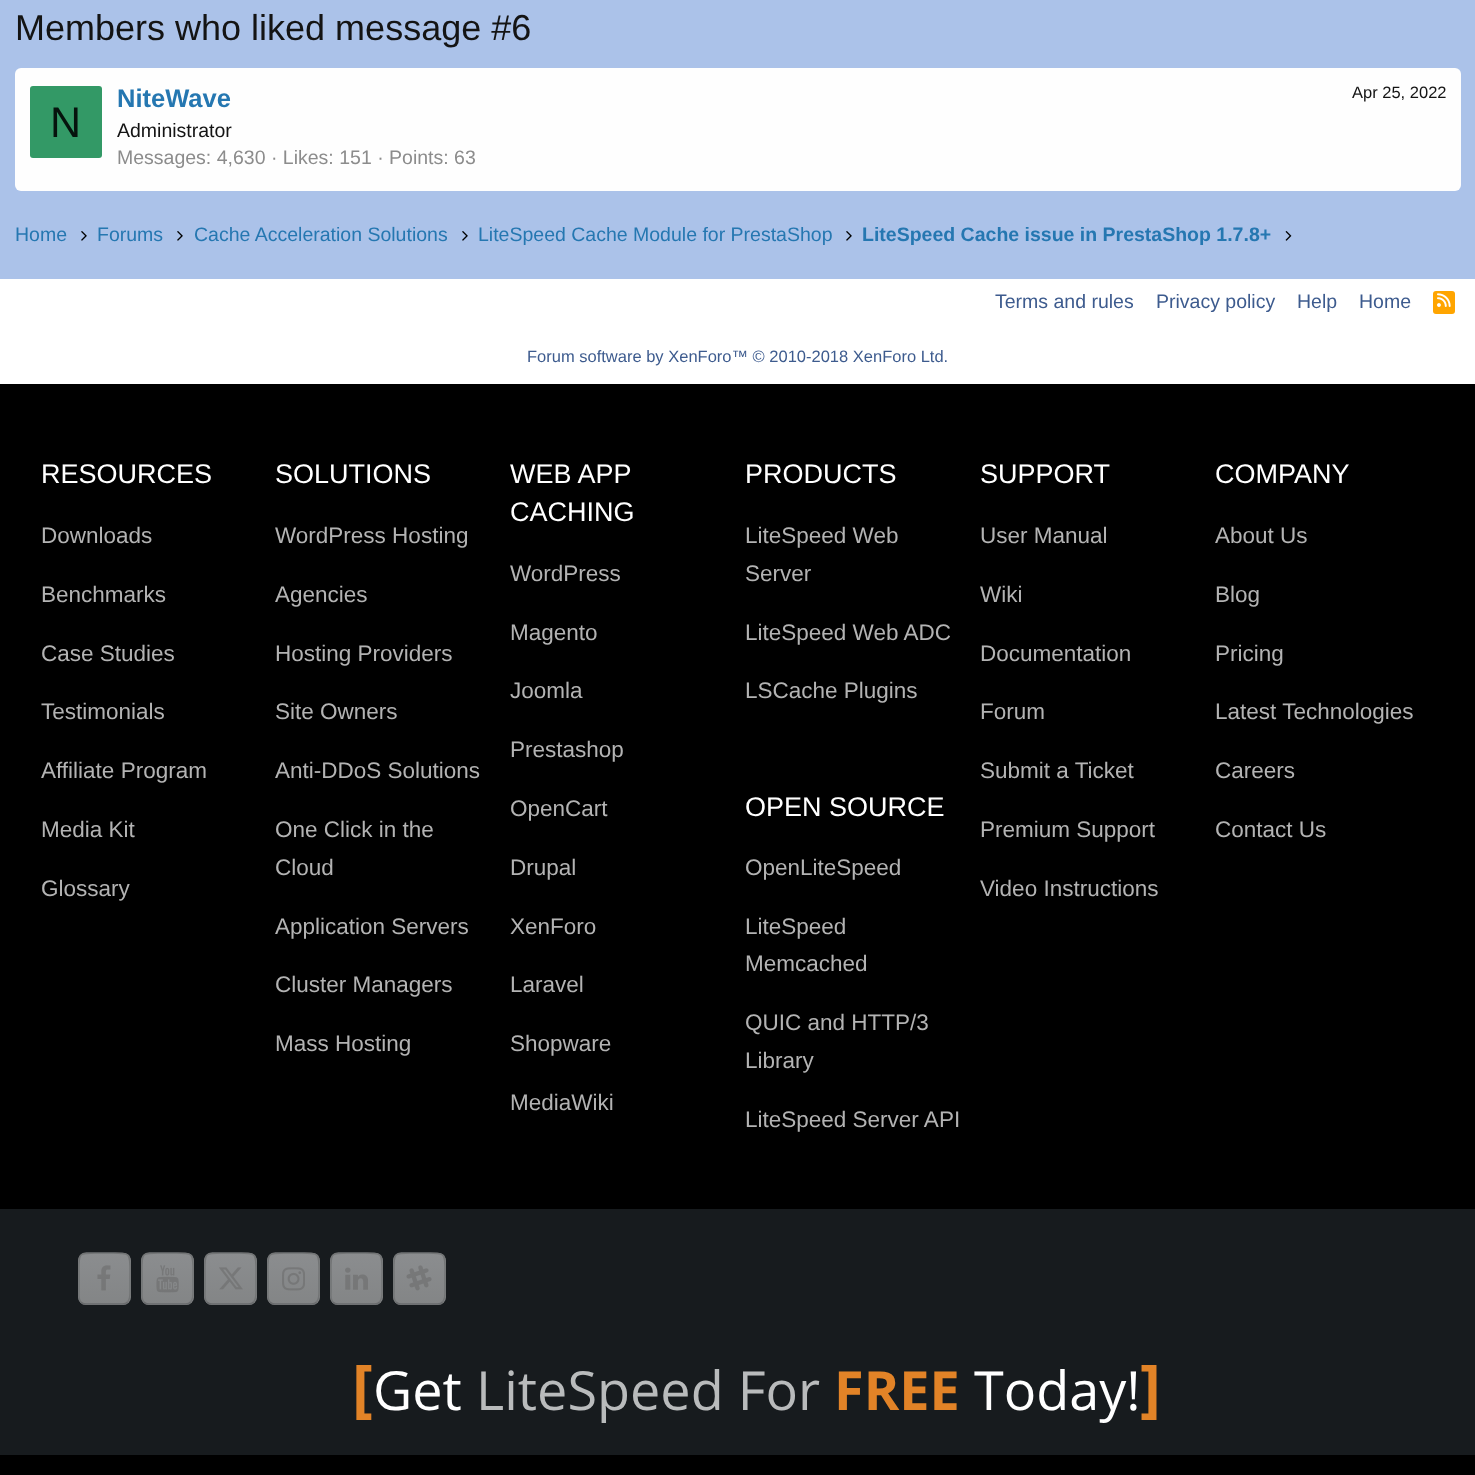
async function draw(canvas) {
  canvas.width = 1475;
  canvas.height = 1475;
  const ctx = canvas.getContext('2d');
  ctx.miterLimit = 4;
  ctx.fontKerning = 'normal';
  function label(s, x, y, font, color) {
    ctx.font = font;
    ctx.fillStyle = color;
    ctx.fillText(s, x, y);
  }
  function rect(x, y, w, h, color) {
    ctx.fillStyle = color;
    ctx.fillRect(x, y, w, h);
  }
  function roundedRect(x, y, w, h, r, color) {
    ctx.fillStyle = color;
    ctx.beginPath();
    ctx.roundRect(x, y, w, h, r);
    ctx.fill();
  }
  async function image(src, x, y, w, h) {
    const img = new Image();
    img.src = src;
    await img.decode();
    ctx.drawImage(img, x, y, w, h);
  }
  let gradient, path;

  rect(0, 0, 1475, 1475, '#fff');
  rect(0, 0, 1475, 279, '#abc2e9');
  label('Members who liked message #6', 15, 40, '36px Liberation Sans', '#141414');
  roundedRect(15, 68, 1446, 123, 6, '#fefefe');
  roundedRect(30, 86, 72, 72, 3, '#396');
  label('N', 50, 137, '43px Liberation Sans', '#06130d');
  label('NiteWave', 117, 107, 'bold 25.5px Liberation Sans', '#2577b1');
  label('Apr 25, 2022', 1352, 98, '16.5px Liberation Sans', '#141414');
  label('Administrator', 117, 137, '19.5px Liberation Sans', '#141414');
  label('Messages: 4,630 · Likes: 151 · Points: 63', 117, 164, '19.5px Liberation Sans', '#8c8c8c');
  label('Home', 15, 241, '19.5px Liberation Sans', '#2577b1');
  await image('assets/img1.png', 81, 231, 6, 10);
  label('Forums', 97, 241, '19.5px Liberation Sans', '#2577b1');
  await image('assets/img1.png', 177, 231, 6, 10);
  label('Cache Acceleration Solutions', 194, 241, '19.5px Liberation Sans', '#2577b1');
  await image('assets/img1.png', 462, 231, 6, 10);
  label('LiteSpeed Cache Module for PrestaShop', 478, 241, '19.5px Liberation Sans', '#2577b1');
  await image('assets/img1.png', 846, 231, 6, 10);
  label('LiteSpeed Cache issue in PrestaShop 1.7.8+', 862, 241, 'bold 19.5px Liberation Sans', '#2577b1');
  await image('assets/img2.png', 1285, 231, 7, 10);
  label('Terms and rules', 995, 308, '19.5px Liberation Sans', '#3d5b8e');
  label('Privacy policy', 1156, 308, '19.5px Liberation Sans', '#3d5b8e');
  label('Help', 1297, 308, '19.5px Liberation Sans', '#3d5b8e');
  label('Home', 1359, 308, '19.5px Liberation Sans', '#3d5b8e');
  roundedRect(1433, 291, 22, 23, 3, '#ffa500');
  await image('assets/img3.png', 1437, 293, 14, 14);
  label('Forum software by XenForo™ © 2010-2018 XenForo Ltd.', 527, 362, '16.5px Liberation Sans', '#3d5b8e');
  rect(0, 384, 1475, 1091, '#000');
  label('RESOURCES', 41, 483, '27px Liberation Sans', '#fff');
  label('Downloads', 41, 543, '22.5px Liberation Sans', '#b3b3b3');
  label('Benchmarks', 41, 602, '22.5px Liberation Sans', '#b3b3b3');
  label('Case Studies', 41, 661, '22.5px Liberation Sans', '#b3b3b3');
  label('Testimonials', 41, 719, '22.5px Liberation Sans', '#b3b3b3');
  label('Affiliate Program', 41, 778, '22.5px Liberation Sans', '#b3b3b3');
  label('Media Kit', 41, 837, '22.5px Liberation Sans', '#b3b3b3');
  label('Glossary', 41, 896, '22.5px Liberation Sans', '#b3b3b3');
  label('SOLUTIONS', 275, 483, '27px Liberation Sans', '#fff');
  label('WordPress Hosting', 275, 543, '22.5px Liberation Sans', '#b3b3b3');
  label('Agencies', 275, 602, '22.5px Liberation Sans', '#b3b3b3');
  label('Hosting Providers', 275, 661, '22.5px Liberation Sans', '#b3b3b3');
  label('Site Owners', 275, 719, '22.5px Liberation Sans', '#b3b3b3');
  label('Anti-DDoS Solutions', 275, 778, '22.5px Liberation Sans', '#b3b3b3');
  label('One Click in the', 275, 837, '22.5px Liberation Sans', '#b3b3b3');
  label('Cloud', 275, 875, '22.5px Liberation Sans', '#b3b3b3');
  label('Application Servers', 275, 934, '22.5px Liberation Sans', '#b3b3b3');
  label('Cluster Managers', 275, 992, '22.5px Liberation Sans', '#b3b3b3');
  label('Mass Hosting', 275, 1051, '22.5px Liberation Sans', '#b3b3b3');
  label('WEB APP', 510, 483, '27px Liberation Sans', '#fff');
  label('CACHING', 510, 521, '27px Liberation Sans', '#fff');
  label('WordPress', 510, 581, '22.5px Liberation Sans', '#b3b3b3');
  label('Magento', 510, 640, '22.5px Liberation Sans', '#b3b3b3');
  label('Joomla', 510, 698, '22.5px Liberation Sans', '#b3b3b3');
  label('Prestashop', 510, 757, '22.5px Liberation Sans', '#b3b3b3');
  label('OpenCart', 510, 816, '22.5px Liberation Sans', '#b3b3b3');
  label('Drupal', 510, 875, '22.5px Liberation Sans', '#b3b3b3');
  label('XenForo', 510, 934, '22.5px Liberation Sans', '#b3b3b3');
  label('Laravel', 510, 992, '22.5px Liberation Sans', '#b3b3b3');
  label('Shopware', 510, 1051, '22.5px Liberation Sans', '#b3b3b3');
  label('MediaWiki', 510, 1110, '22.5px Liberation Sans', '#b3b3b3');
  label('PRODUCTS', 745, 483, '27px Liberation Sans', '#fff');
  label('LiteSpeed Web', 745, 543, '22.5px Liberation Sans', '#b3b3b3');
  label('Server', 745, 581, '22.5px Liberation Sans', '#b3b3b3');
  label('LiteSpeed Web ADC', 745, 640, '22.5px Liberation Sans', '#b3b3b3');
  label('LSCache Plugins', 745, 698, '22.5px Liberation Sans', '#b3b3b3');
  label('OPEN SOURCE', 745, 816, '27px Liberation Sans', '#fff');
  label('OpenLiteSpeed', 745, 875, '22.5px Liberation Sans', '#b3b3b3');
  label('LiteSpeed', 745, 934, '22.5px Liberation Sans', '#b3b3b3');
  label('Memcached', 745, 971, '22.5px Liberation Sans', '#b3b3b3');
  label('QUIC and HTTP/3', 745, 1030, '22.5px Liberation Sans', '#b3b3b3');
  label('Library', 745, 1068, '22.5px Liberation Sans', '#b3b3b3');
  label('LiteSpeed Server API', 745, 1127, '22.5px Liberation Sans', '#b3b3b3');
  label('SUPPORT', 980, 483, '27px Liberation Sans', '#fff');
  label('User Manual', 980, 543, '22.5px Liberation Sans', '#b3b3b3');
  label('Wiki', 980, 602, '22.5px Liberation Sans', '#b3b3b3');
  label('Documentation', 980, 661, '22.5px Liberation Sans', '#b3b3b3');
  label('Forum', 980, 719, '22.5px Liberation Sans', '#b3b3b3');
  label('Submit a Ticket', 980, 778, '22.5px Liberation Sans', '#b3b3b3');
  label('Premium Support', 980, 837, '22.5px Liberation Sans', '#b3b3b3');
  label('Video Instructions', 980, 896, '22.5px Liberation Sans', '#b3b3b3');
  label('COMPANY', 1215, 483, '27px Liberation Sans', '#fff');
  label('About Us', 1215, 543, '22.5px Liberation Sans', '#b3b3b3');
  label('Blog', 1215, 602, '22.5px Liberation Sans', '#b3b3b3');
  label('Pricing', 1215, 661, '22.5px Liberation Sans', '#b3b3b3');
  label('Latest Technologies', 1215, 719, '22.5px Liberation Sans', '#b3b3b3');
  label('Careers', 1215, 778, '22.5px Liberation Sans', '#b3b3b3');
  label('Contact Us', 1215, 837, '22.5px Liberation Sans', '#b3b3b3');
  rect(0, 1209, 1475, 246, '#171b1e');
  gradient = ctx.createLinearGradient(104, 1253, 104, 1305);
  gradient.addColorStop(0, '#8b8d8f');
  gradient.addColorStop(1, '#838586');
  ctx.fillStyle = gradient;
  ctx.beginPath();
  ctx.roundRect(78, 1253, 53, 52, 8);
  ctx.fill();
  path = new Path2D('M127.5 1302C126.5 1303.5 124.5 1304 122.5 1304H86C84 1304 82 1303.5 81 1302');
  ctx.strokeStyle = '#696b6d';
  ctx.lineWidth = 1.5;
  ctx.stroke(path);
  path = new Path2D('M81 1302C78 1299 79 1294.5 79 1291V1279C79 1250 75.5 1253 104 1253C133 1253 130 1250 130 1279V1291C130 1294.5 130.5 1299 127.5 1302');
  ctx.strokeStyle = '#727475';
  ctx.stroke(path);
  await image('assets/img4.png', 97, 1265, 14, 26);
  gradient = ctx.createLinearGradient(167, 1253, 167, 1305);
  gradient.addColorStop(0, '#8b8d8f');
  gradient.addColorStop(1, '#838586');
  ctx.fillStyle = gradient;
  ctx.beginPath();
  ctx.roundRect(141, 1253, 53, 52, 8);
  ctx.fill();
  path = new Path2D('M190.5 1302C189.5 1303.5 187.5 1304 185.5 1304H149C147 1304 145 1303.5 144 1302');
  ctx.strokeStyle = '#696b6d';
  ctx.stroke(path);
  path = new Path2D('M144 1302C141 1299 142 1294.5 142 1291V1279C142 1250 138.5 1253 167 1253C196 1253 193 1250 193 1279V1291C193 1294.5 193.5 1299 190.5 1302');
  ctx.strokeStyle = '#727475';
  ctx.stroke(path);
  await image('assets/img5.png', 156, 1265, 23, 28);
  gradient = ctx.createLinearGradient(230, 1253, 230, 1305);
  gradient.addColorStop(0, '#8b8d8f');
  gradient.addColorStop(1, '#838586');
  ctx.fillStyle = gradient;
  ctx.beginPath();
  ctx.roundRect(204, 1253, 53, 52, 8);
  ctx.fill();
  path = new Path2D('M253.5 1302C252.5 1303.5 250.5 1304 248.5 1304H212C210 1304 208 1303.5 207 1302');
  ctx.strokeStyle = '#696b6d';
  ctx.stroke(path);
  path = new Path2D('M207 1302C204 1299 205 1294.5 205 1291V1279C205 1250 201.5 1253 230 1253C259 1253 256 1250 256 1279V1291C256 1294.5 256.5 1299 253.5 1302');
  ctx.strokeStyle = '#727475';
  ctx.stroke(path);
  await image('assets/img6.png', 219, 1267, 24, 23);
  gradient = ctx.createLinearGradient(293, 1253, 293, 1305);
  gradient.addColorStop(0, '#8b8d8f');
  gradient.addColorStop(1, '#838586');
  ctx.fillStyle = gradient;
  ctx.beginPath();
  ctx.roundRect(267, 1253, 53, 52, 8);
  ctx.fill();
  path = new Path2D('M316.5 1302C315.5 1303.5 313.5 1304 311.5 1304H275C273 1304 271 1303.5 270 1302');
  ctx.strokeStyle = '#696b6d';
  ctx.stroke(path);
  path = new Path2D('M270 1302C267 1299 268 1294.5 268 1291V1279C268 1250 264.5 1253 293 1253C322 1253 319 1250 319 1279V1291C319 1294.5 319.5 1299 316.5 1302');
  ctx.strokeStyle = '#727475';
  ctx.stroke(path);
  await image('assets/img7.png', 282, 1267, 23, 24);
  gradient = ctx.createLinearGradient(356, 1253, 356, 1305);
  gradient.addColorStop(0, '#8b8d8f');
  gradient.addColorStop(1, '#838586');
  ctx.fillStyle = gradient;
  ctx.beginPath();
  ctx.roundRect(330, 1253, 53, 52, 8);
  ctx.fill();
  path = new Path2D('M379.5 1302C378.5 1303.5 376.5 1304 374.5 1304H338C336 1304 334 1303.5 333 1302');
  ctx.strokeStyle = '#696b6d';
  ctx.stroke(path);
  path = new Path2D('M333 1302C330 1299 331 1294.5 331 1291V1279C331 1250 327.5 1253 356 1253C385 1253 382 1250 382 1279V1291C382 1294.5 382.5 1299 379.5 1302');
  ctx.strokeStyle = '#727475';
  ctx.stroke(path);
  await image('assets/img8.png', 345, 1267, 23, 23);
  gradient = ctx.createLinearGradient(419, 1253, 419, 1305);
  gradient.addColorStop(0, '#8b8d8f');
  gradient.addColorStop(1, '#838586');
  ctx.fillStyle = gradient;
  ctx.beginPath();
  ctx.roundRect(393, 1253, 53, 52, 8);
  ctx.fill();
  path = new Path2D('M442.5 1302C441.5 1303.5 439.5 1304 437.5 1304H401C399 1304 397 1303.5 396 1302');
  ctx.strokeStyle = '#696b6d';
  ctx.stroke(path);
  path = new Path2D('M396 1302C393 1299 394 1294.5 394 1291V1279C394 1250 390.5 1253 419 1253C448 1253 445 1250 445 1279V1291C445 1294.5 445.5 1299 442.5 1302');
  ctx.strokeStyle = '#727475';
  ctx.stroke(path);
  await image('assets/img9.png', 406, 1265, 26, 26);
  label('[', 352, 1410, 'bold 63px Open Sans', '#e28327');
  label('Get', 373, 1410, '54px Open Sans', '#fff');
  label('LiteSpeed For', 476, 1410, '54px Open Sans', '#b9bbbc');
  label('FREE', 834, 1410, 'bold 54px Open Sans', '#e28327');
  label('Today!', 974, 1410, '54px Open Sans', '#fff');
  label(']', 1140, 1410, 'bold 63px Open Sans', '#e28327');
}

draw(document.querySelector('canvas'));
